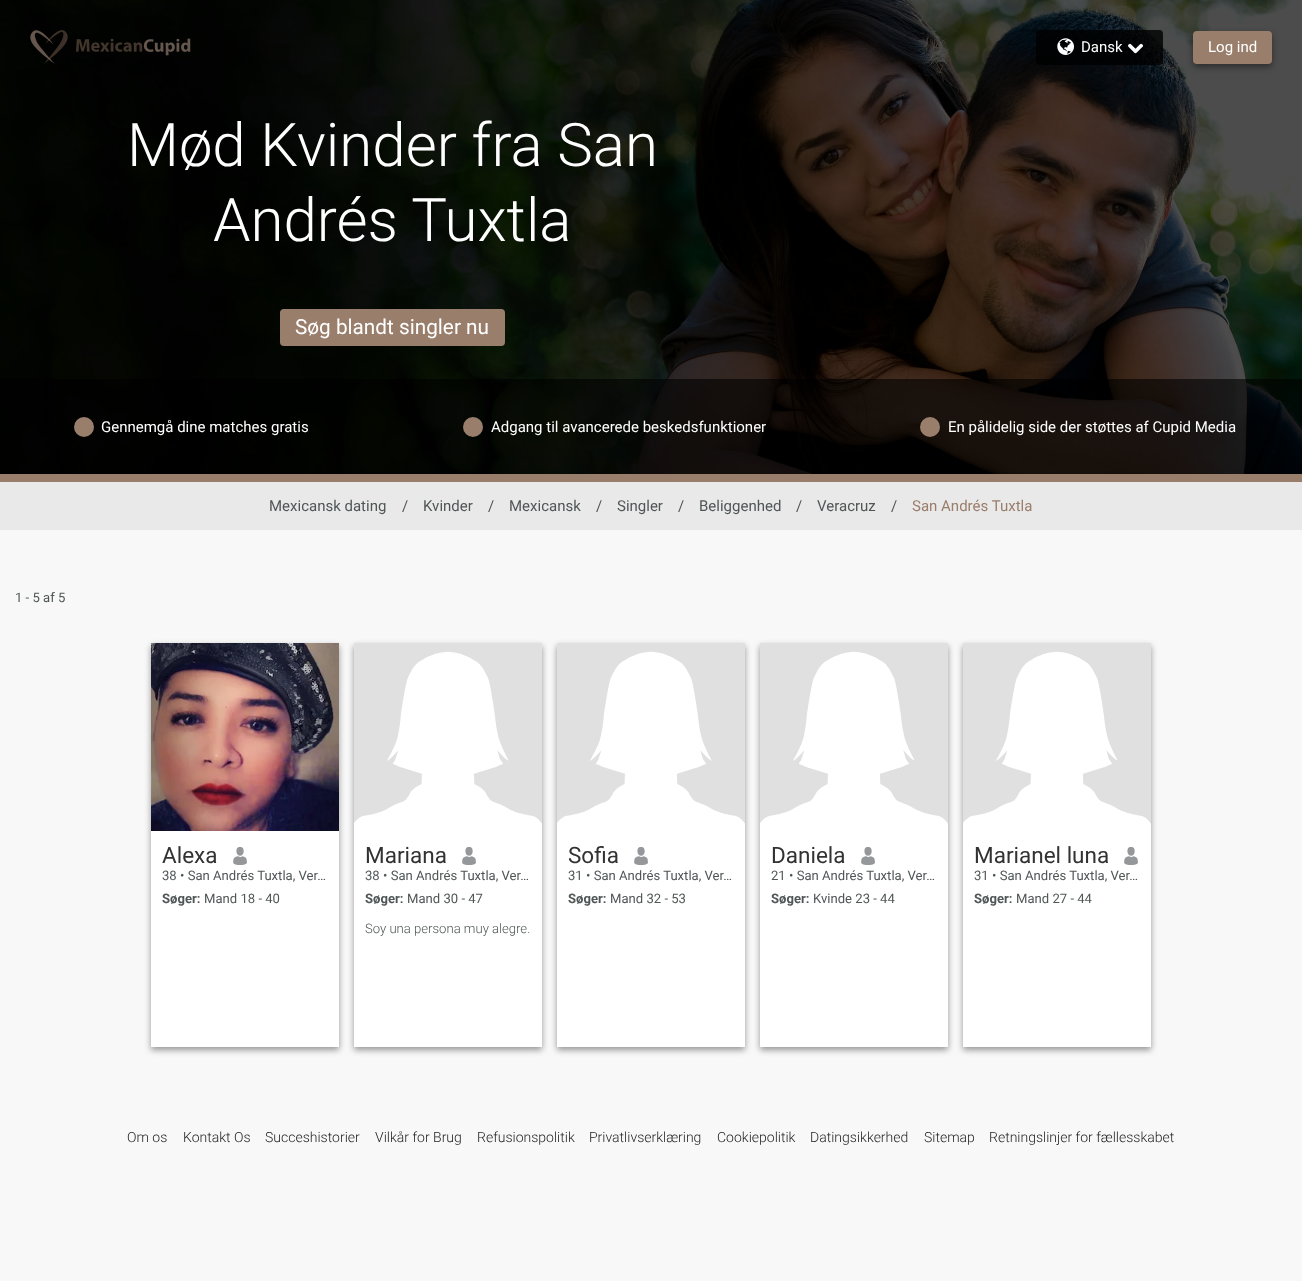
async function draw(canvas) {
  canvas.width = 1302;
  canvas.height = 1281;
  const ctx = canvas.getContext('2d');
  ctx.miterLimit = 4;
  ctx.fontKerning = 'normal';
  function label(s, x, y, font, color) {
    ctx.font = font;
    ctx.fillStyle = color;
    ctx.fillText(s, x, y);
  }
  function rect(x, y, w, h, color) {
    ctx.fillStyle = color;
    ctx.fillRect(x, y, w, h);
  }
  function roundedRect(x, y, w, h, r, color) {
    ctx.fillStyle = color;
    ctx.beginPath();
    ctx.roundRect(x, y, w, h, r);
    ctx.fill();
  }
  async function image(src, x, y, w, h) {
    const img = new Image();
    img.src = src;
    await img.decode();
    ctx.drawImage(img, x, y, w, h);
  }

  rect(0, 0, 1302, 1281, '#f8f8f8');
  await image('assets/img5.png', 0, 0, 1302, 474);
  await image('assets/img1.png', 30, 30, 38, 34);
  await image('assets/img2.png', 76, 38, 115, 18);
  roundedRect(1036, 30, 127, 35, 4, '#000000cc');
  await image('assets/img3.png', 1057, 38, 17, 17);
  label('Dansk', 1081, 52, '15px Roboto', '#fff');
  await image('assets/img4.png', 1128, 43, 15, 11);
  ctx.fillStyle = '#00000066';
  ctx.filter = 'blur(3px)';
  ctx.beginPath();
  ctx.roundRect(1193, 34, 79, 33, 4);
  ctx.fill();
  ctx.filter = 'none';
  roundedRect(1193, 31, 79, 33, 4, '#9a7e6c');
  label('Log ind', 1208, 52, '15px Roboto', '#fff');
  label('Mød Kvinder fra San', 127, 166, '300 60px Roboto', '#fff');
  label('Andrés Tuxtla', 213, 241, '300 60px Roboto', '#fff');
  roundedRect(280, 309, 225, 37, 4, '#9a7e6c');
  label('Søg blandt singler nu', 295, 334, '20.75px Roboto', '#fff');
  rect(0, 379, 1302, 95, '#00000099');
  ctx.fillStyle = '#9a7e6c';
  ctx.beginPath();
  ctx.arc(84, 427, 10, 0, 2 * Math.PI);
  ctx.fill();
  label('Gennemgå dine matches gratis', 101, 432, '15px Roboto', '#fff');
  ctx.fillStyle = '#9a7e6c';
  ctx.beginPath();
  ctx.arc(473, 427, 10, 0, 2 * Math.PI);
  ctx.fill();
  label('Adgang til avancerede beskedsfunktioner', 491, 432, '15px Roboto', '#fff');
  ctx.fillStyle = '#9a7e6c';
  ctx.beginPath();
  ctx.arc(930, 427, 10, 0, 2 * Math.PI);
  ctx.fill();
  label('En pålidelig side der støttes af Cupid Media', 948, 432, '15px Roboto', '#fff');
  rect(0, 474, 1302, 8, '#9a7e6c');
  rect(0, 482, 1302, 48, '#e9e9e9');
  label('Mexicansk dating', 269, 511, '15px Roboto', '#505656');
  label('/', 402, 511, '15px Roboto', '#505656');
  label('Kvinder', 423, 511, '15px Roboto', '#505656');
  label('/', 488, 511, '15px Roboto', '#505656');
  label('Mexicansk', 509, 511, '15px Roboto', '#505656');
  label('/', 596, 511, '15px Roboto', '#505656');
  label('Singler', 617, 511, '15px Roboto', '#505656');
  label('/', 678, 511, '15px Roboto', '#505656');
  label('Beliggenhed', 699, 511, '15px Roboto', '#505656');
  label('/', 796, 511, '15px Roboto', '#505656');
  label('Veracruz', 817, 511, '15px Roboto', '#505656');
  label('/', 891, 511, '15px Roboto', '#505656');
  label('San Andrés Tuxtla', 912, 511, '15px Roboto', '#9a7e6c');
  label('1 - 5 af 5', 15, 602, '13.1px Roboto', '#505656');
  ctx.fillStyle = '#00000066';
  ctx.filter = 'blur(3px)';
  ctx.beginPath();
  ctx.rect(151, 646, 188, 404);
  ctx.fill();
  ctx.filter = 'none';
  rect(151, 831, 188, 216, '#fff');
  await image('assets/img6.png', 151, 643, 188, 188);
  label('Alexa', 162, 863, '22.5px Roboto', '#323232');
  await image('assets/img7.png', 233, 847, 14, 18);
  label('38 • San Andrés Tuxtla, Ver…', 162, 880, '13.1px Roboto', '#505656');
  label('Søger:', 162, 903, 'bold 13.1px Roboto', '#505656');
  label('Mand 18 - 40', 204, 903, '13.1px Roboto', '#505656');
  ctx.fillStyle = '#00000066';
  ctx.filter = 'blur(3px)';
  ctx.beginPath();
  ctx.rect(354, 646, 188, 404);
  ctx.fill();
  ctx.filter = 'none';
  rect(354, 831, 188, 216, '#fff');
  rect(354, 643, 188, 181, '#e0e0e0');
  await image('assets/img8.png', 354, 651, 188, 180);
  label('Mariana', 365, 863, '22.5px Roboto', '#323232');
  await image('assets/img7.png', 462, 847, 14, 18);
  label('38 • San Andrés Tuxtla, Ver…', 365, 880, '13.1px Roboto', '#505656');
  label('Søger:', 365, 903, 'bold 13.1px Roboto', '#505656');
  label('Mand 30 - 47', 407, 903, '13.1px Roboto', '#505656');
  label('Soy una persona muy alegre.', 365, 933, '300 13.1px Roboto', '#505656');
  ctx.fillStyle = '#00000066';
  ctx.filter = 'blur(3px)';
  ctx.beginPath();
  ctx.rect(557, 646, 188, 404);
  ctx.fill();
  ctx.filter = 'none';
  rect(557, 831, 188, 216, '#fff');
  rect(557, 643, 188, 181, '#e0e0e0');
  await image('assets/img9.png', 557, 651, 188, 180);
  label('Sofia', 568, 863, '22.5px Roboto', '#323232');
  await image('assets/img7.png', 634, 847, 14, 18);
  label('31 • San Andrés Tuxtla, Ver…', 568, 880, '13.1px Roboto', '#505656');
  label('Søger:', 568, 903, 'bold 13.1px Roboto', '#505656');
  label('Mand 32 - 53', 610, 903, '13.1px Roboto', '#505656');
  ctx.fillStyle = '#00000066';
  ctx.filter = 'blur(3px)';
  ctx.beginPath();
  ctx.rect(760, 646, 188, 404);
  ctx.fill();
  ctx.filter = 'none';
  rect(760, 831, 188, 216, '#fff');
  rect(760, 643, 188, 181, '#e0e0e0');
  await image('assets/img10.png', 760, 651, 188, 180);
  label('Daniela', 771, 863, '22.5px Roboto', '#323232');
  await image('assets/img7.png', 861, 847, 14, 18);
  label('21 • San Andrés Tuxtla, Ver…', 771, 880, '13.1px Roboto', '#505656');
  label('Søger:', 771, 903, 'bold 13.1px Roboto', '#505656');
  label('Kvinde 23 - 44', 813, 903, '13.1px Roboto', '#505656');
  ctx.fillStyle = '#00000066';
  ctx.filter = 'blur(3px)';
  ctx.beginPath();
  ctx.rect(963, 646, 188, 404);
  ctx.fill();
  ctx.filter = 'none';
  rect(963, 831, 188, 216, '#fff');
  rect(963, 643, 188, 181, '#e0e0e0');
  await image('assets/img11.png', 963, 651, 188, 180);
  label('Marianel luna', 974, 863, '22.5px Roboto', '#323232');
  await image('assets/img7.png', 1124, 847, 14, 18);
  label('31 • San Andrés Tuxtla, Ver…', 974, 880, '13.1px Roboto', '#505656');
  label('Søger:', 974, 903, 'bold 13.1px Roboto', '#505656');
  label('Mand 27 - 44', 1016, 903, '13.1px Roboto', '#505656');
  label('Om os', 127, 1142, '300 14px Roboto', '#222');
  label('Kontakt Os', 183, 1142, '300 14px Roboto', '#222');
  label('Succeshistorier', 265, 1142, '300 14px Roboto', '#222');
  label('Vilkår for Brug', 375, 1142, '300 14px Roboto', '#222');
  label('Refusionspolitik', 477, 1142, '300 14px Roboto', '#222');
  label('Privatlivserklæring', 589, 1142, '300 14px Roboto', '#222');
  label('Cookiepolitik', 717, 1142, '300 14px Roboto', '#222');
  label('Datingsikkerhed', 810, 1142, '300 14px Roboto', '#222');
  label('Sitemap', 924, 1142, '300 14px Roboto', '#222');
  label('Retningslinjer for fællesskabet', 989, 1142, '300 14px Roboto', '#222');
}

draw(document.querySelector('canvas'));
